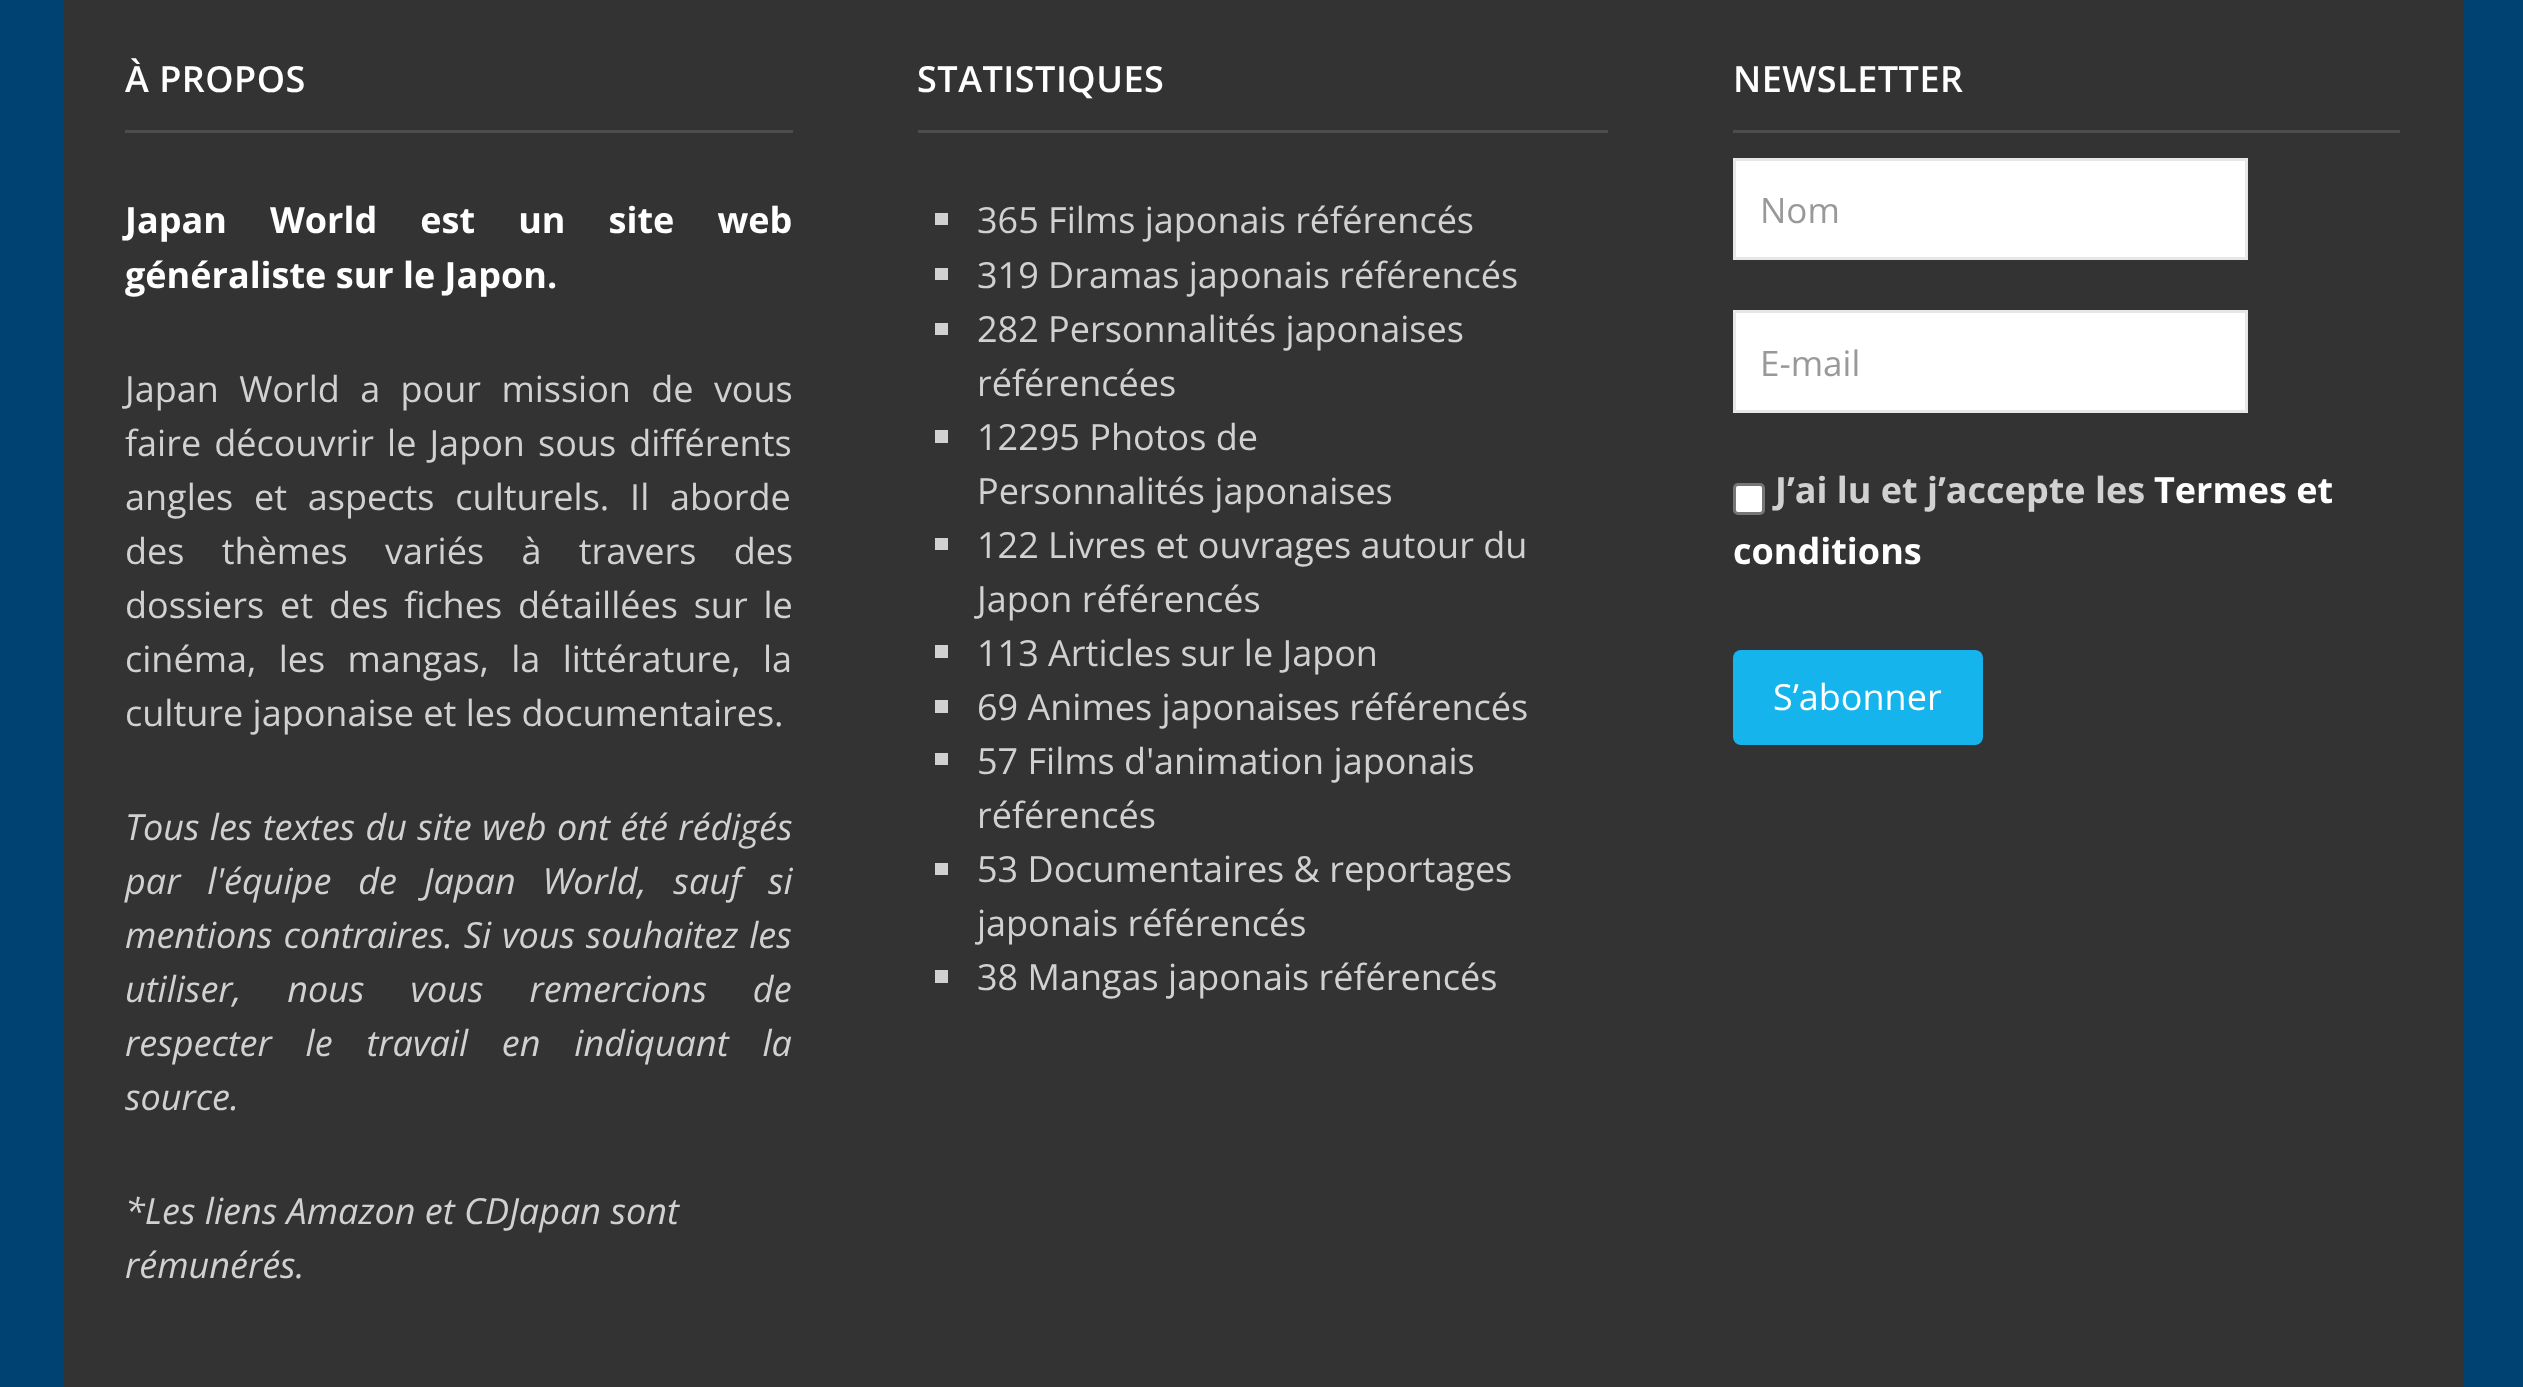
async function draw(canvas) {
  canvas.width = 2523;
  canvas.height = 1387;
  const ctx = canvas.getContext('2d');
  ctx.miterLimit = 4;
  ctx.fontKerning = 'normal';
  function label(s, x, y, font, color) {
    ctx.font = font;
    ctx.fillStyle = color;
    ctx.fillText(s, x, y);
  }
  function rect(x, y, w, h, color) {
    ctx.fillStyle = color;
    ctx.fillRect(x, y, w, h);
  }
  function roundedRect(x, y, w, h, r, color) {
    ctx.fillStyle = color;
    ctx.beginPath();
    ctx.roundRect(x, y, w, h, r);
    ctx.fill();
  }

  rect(0, 0, 2523, 1387, '#004272');
  rect(63, 0, 2400, 1387, '#333');
  rect(125, 130, 668, 3, '#4d4d4d');
  ctx.letterSpacing = '0.5px';
  label('À PROPOS', 125, 92, '600 36px Open Sans', '#fff');
  ctx.letterSpacing = '0px';
  ctx.wordSpacing = '33.75px';
  label('Japan World est un site web', 125, 233, 'bold 36px Open Sans', '#fff');
  ctx.wordSpacing = '0px';
  label('généraliste sur le Japon.', 125, 288, 'bold 36px Open Sans', '#fff');
  ctx.wordSpacing = '11px';
  label('Japan World a pour mission de vous', 125, 402, '36px Open Sans', '#d1d1d1');
  ctx.wordSpacing = '3.75px';
  label('faire découvrir le Japon sous différents', 125, 456, '36px Open Sans', '#d1d1d1');
  ctx.wordSpacing = '11.5px';
  label('angles et aspects culturels. Il aborde', 125, 510, '36px Open Sans', '#d1d1d1');
  ctx.wordSpacing = '28px';
  label('des thèmes variés à travers des', 125, 564, '36px Open Sans', '#d1d1d1');
  ctx.wordSpacing = '6.5px';
  label('dossiers et des fiches détaillées sur le', 125, 618, '36px Open Sans', '#d1d1d1');
  ctx.wordSpacing = '13px';
  label('cinéma, les mangas, la littérature, la', 125, 672, '36px Open Sans', '#d1d1d1');
  ctx.wordSpacing = '0px';
  label('culture japonaise et les documentaires.', 125, 726, '36px Open Sans', '#d1d1d1');
  ctx.wordSpacing = '1px';
  label('Tous les textes du site web ont été rédigés', 125, 840, 'italic 36px Open Sans', '#d1d1d1');
  ctx.wordSpacing = '17.5px';
  label('par l\'équipe de Japan World, sauf si', 125, 894, 'italic 36px Open Sans', '#d1d1d1');
  ctx.wordSpacing = '1.5px';
  label('mentions contraires. Si vous souhaitez les', 125, 948, 'italic 36px Open Sans', '#d1d1d1');
  ctx.wordSpacing = '36.5px';
  label('utiliser, nous vous remercions de', 125, 1002, 'italic 36px Open Sans', '#d1d1d1');
  ctx.wordSpacing = '24.5px';
  label('respecter le travail en indiquant la', 125, 1056, 'italic 36px Open Sans', '#d1d1d1');
  ctx.wordSpacing = '0px';
  label('source.', 125, 1110, 'italic 36px Open Sans', '#d1d1d1');
  label('*Les liens Amazon et CDJapan sont', 125, 1224, 'italic 36px Open Sans', '#d1d1d1');
  label('rémunérés.', 125, 1278, 'italic 36px Open Sans', '#d1d1d1');
  rect(918, 130, 690, 3, '#4d4d4d');
  ctx.letterSpacing = '0.5px';
  label('STATISTIQUES', 917, 92, '600 36px Open Sans', '#fff');
  rect(935, 213, 13, 12, '#d1d1d1');
  ctx.letterSpacing = '0px';
  label('365 Films japonais référencés', 977, 233, '36px Open Sans', '#d1d1d1');
  rect(935, 268, 13, 12, '#d1d1d1');
  label('319 Dramas japonais référencés', 977, 288, '36px Open Sans', '#d1d1d1');
  rect(935, 323, 13, 12, '#d1d1d1');
  label('282 Personnalités japonaises', 977, 342, '36px Open Sans', '#d1d1d1');
  label('référencées', 977, 396, '36px Open Sans', '#d1d1d1');
  rect(935, 430, 13, 13, '#d1d1d1');
  label('12295 Photos de', 977, 450, '36px Open Sans', '#d1d1d1');
  label('Personnalités japonaises', 977, 504, '36px Open Sans', '#d1d1d1');
  rect(935, 538, 13, 12, '#d1d1d1');
  label('122 Livres et ouvrages autour du', 977, 558, '36px Open Sans', '#d1d1d1');
  label('Japon référencés', 977, 612, '36px Open Sans', '#d1d1d1');
  rect(935, 645, 13, 13, '#d1d1d1');
  label('113 Articles sur le Japon', 977, 666, '36px Open Sans', '#d1d1d1');
  rect(935, 700, 13, 13, '#d1d1d1');
  label('69 Animes japonaises référencés', 977, 720, '36px Open Sans', '#d1d1d1');
  rect(935, 753, 13, 12, '#d1d1d1');
  label('57 Films d\'animation japonais', 977, 774, '36px Open Sans', '#d1d1d1');
  label('référencés', 977, 828, '36px Open Sans', '#d1d1d1');
  rect(935, 863, 13, 12, '#d1d1d1');
  label('53 Documentaires & reportages', 977, 882, '36px Open Sans', '#d1d1d1');
  label('japonais référencés', 977, 936, '36px Open Sans', '#d1d1d1');
  rect(935, 970, 13, 13, '#d1d1d1');
  label('38 Mangas japonais référencés', 977, 990, '36px Open Sans', '#d1d1d1');
  rect(1733, 130, 667, 3, '#4d4d4d');
  ctx.letterSpacing = '0.5px';
  label('NEWSLETTER', 1733, 92, '600 36px Open Sans', '#fff');
  ctx.beginPath();
  ctx.rect(1734.5, 159.5, 512, 99);
  ctx.fill();
  ctx.strokeStyle = '#e7e7e7';
  ctx.lineWidth = 3;
  ctx.stroke();
  ctx.letterSpacing = '0px';
  label('Nom', 1760, 223, '35px Open Sans', '#999');
  ctx.fillStyle = '#fff';
  ctx.beginPath();
  ctx.rect(1734.5, 311.5, 512, 100);
  ctx.fill();
  ctx.stroke();
  label('E-mail', 1760, 376, '35px Open Sans', '#999');
  ctx.fillStyle = '#fff';
  ctx.beginPath();
  ctx.roundRect(1734.5, 484.5, 29, 29, 3.5);
  ctx.fill();
  ctx.strokeStyle = '#767676';
  ctx.stroke();
  label('J’ai lu et j’accepte les', 1775, 503, 'bold 36px Open Sans', '#d1d1d1');
  label('Termes et', 2154, 503, 'bold 36px Open Sans', '#fff');
  label('conditions', 1733, 564, 'bold 36px Open Sans', '#fff');
  roundedRect(1733, 650, 250, 95, 8, '#15b4ed');
  label('S’abonner', 1773, 710, '36px Open Sans', '#fff');
}

draw(document.querySelector('canvas'));
